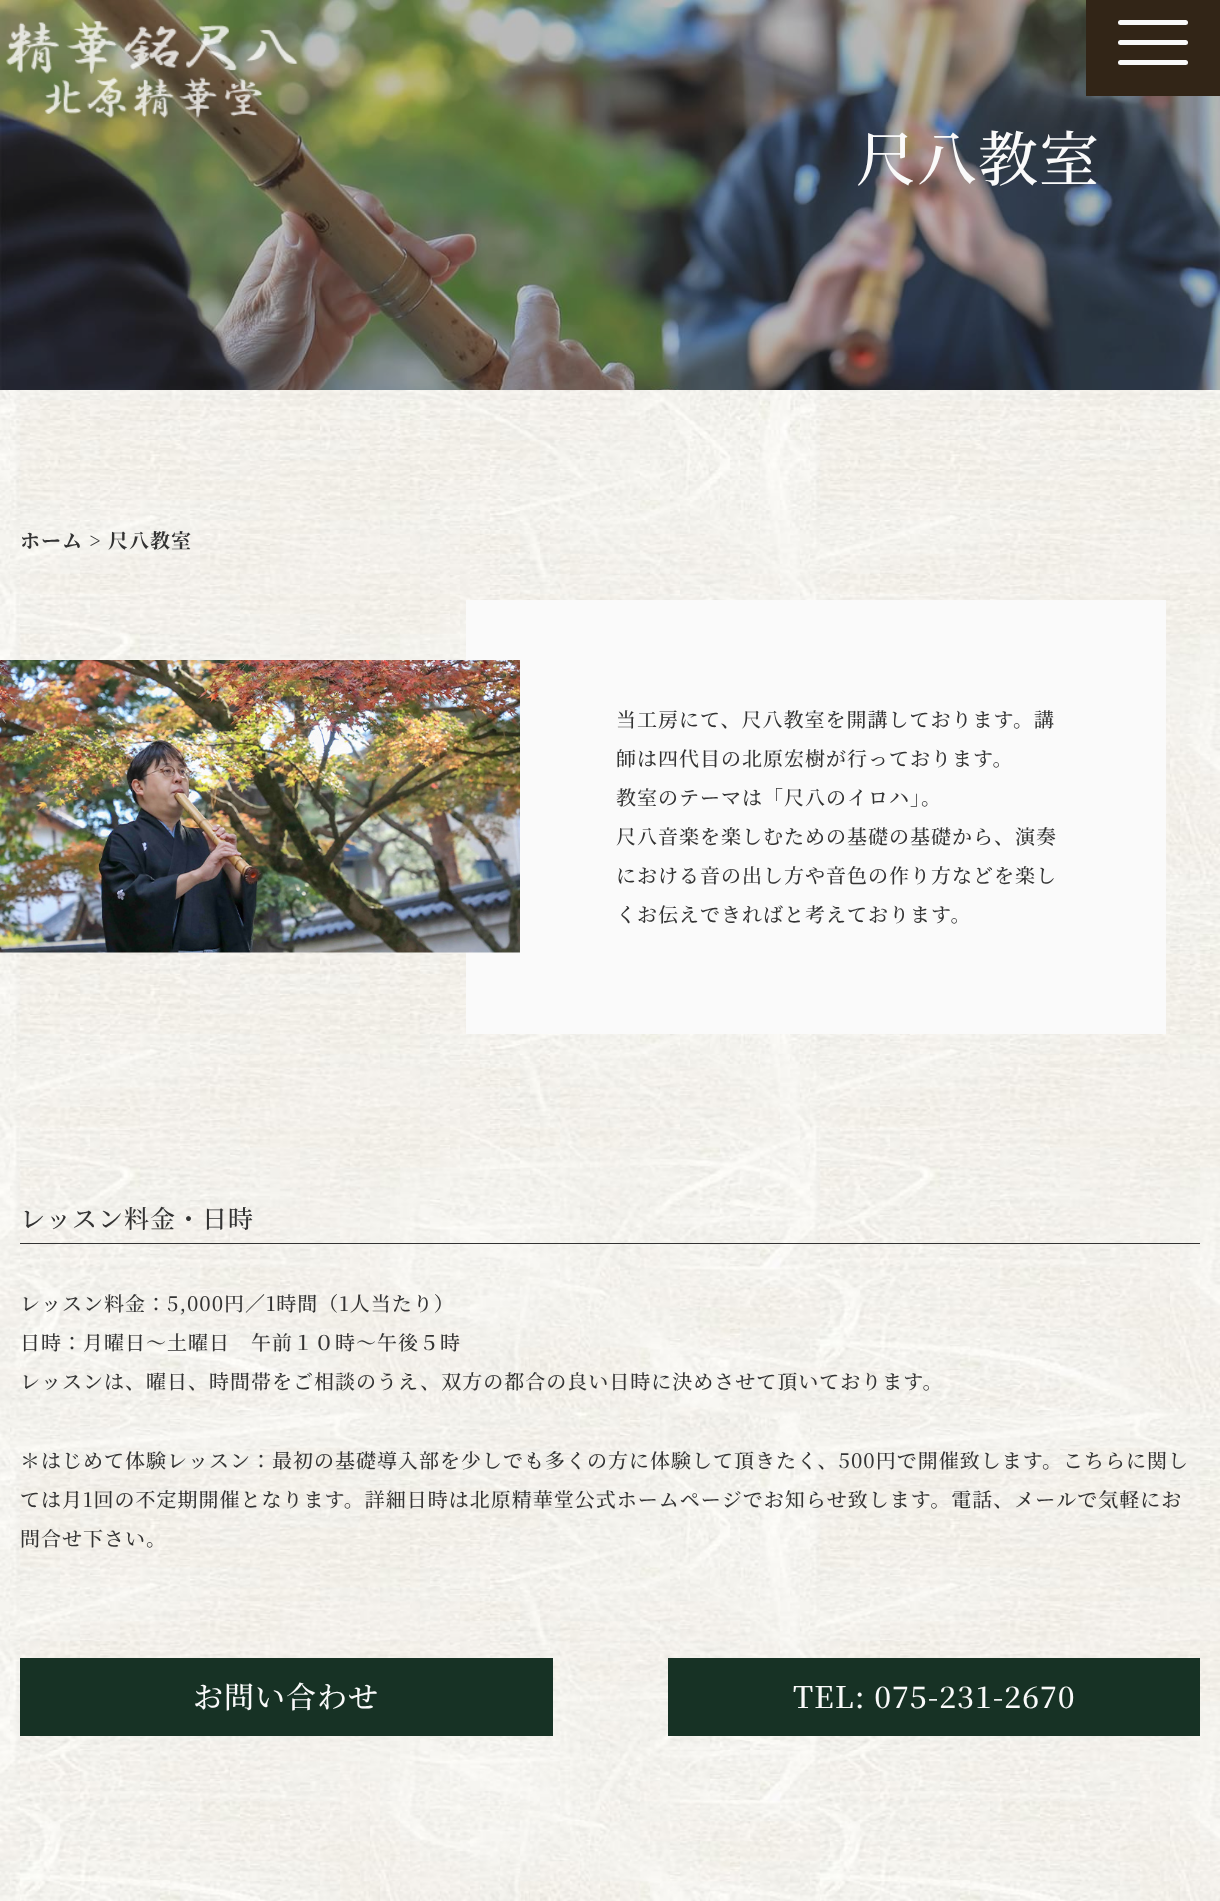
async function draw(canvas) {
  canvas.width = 1220;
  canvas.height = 1901;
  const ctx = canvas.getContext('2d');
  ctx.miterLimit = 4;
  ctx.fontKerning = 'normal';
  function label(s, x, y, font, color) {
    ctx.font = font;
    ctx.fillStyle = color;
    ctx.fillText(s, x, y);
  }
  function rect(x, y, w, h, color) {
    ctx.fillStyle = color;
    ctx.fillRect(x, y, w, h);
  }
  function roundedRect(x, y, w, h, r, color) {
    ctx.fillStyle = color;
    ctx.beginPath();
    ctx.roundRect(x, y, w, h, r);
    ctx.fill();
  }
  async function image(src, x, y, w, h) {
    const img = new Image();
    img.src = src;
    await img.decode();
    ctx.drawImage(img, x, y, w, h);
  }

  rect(0, 0, 1220, 1901, '#fff');
  await image('assets/img1.png', 0, 390, 1220, 1511);
  await image('assets/img2.png', 0, 0, 1220, 390);
  await image('assets/img3.png', 6, 21, 292, 97);
  rect(1086, 0, 134, 96, '#322517');
  roundedRect(1118, 20, 70, 5, 2.5, '#fafafa');
  roundedRect(1118, 40, 70, 5, 2.5, '#fafafa');
  roundedRect(1118, 60, 70, 5, 2.5, '#fafafa');
  ctx.letterSpacing = '1px';
  label('尺八教室', 856, 181, '500 60px Noto Serif JP', '#fafafa');
  label('ホーム', 20, 548, 'bold 20px Noto Serif JP', '#333');
  label('>', 89, 548, '500 20px Noto Serif JP', '#333');
  label('尺八教室', 108, 548, 'bold 20px Noto Serif JP', '#333');
  rect(466, 600, 700, 434, '#fafafa');
  await image('assets/img4.png', 0, 660, 520, 293);
  label('当工房にて、尺八教室を開講しております。講', 616, 727, '500 20px Noto Serif JP', '#333');
  label('師は四代目の北原宏樹が行っております。', 616, 766, '500 20px Noto Serif JP', '#333');
  label('教室のテーマは「尺八のイロハ」。', 616, 805, '500 20px Noto Serif JP', '#333');
  label('尺八音楽を楽しむための基礎の基礎から、演奏', 616, 844, '500 20px Noto Serif JP', '#333');
  label('における音の出し方や音色の作り方などを楽し', 616, 883, '500 20px Noto Serif JP', '#333');
  label('くお伝えできればと考えております。', 616, 922, '500 20px Noto Serif JP', '#333');
  rect(20, 1243, 1180, 1, '#333');
  label('レッスン料金・日時', 20, 1228, '500 25px Noto Serif JP', '#333');
  label('レッスン料金：5,000円／1時間（1人当たり）', 20, 1311, '500 20px Noto Serif JP', '#333');
  label('日時：月曜日～土曜日　午前１０時～午後５時', 20, 1350, '500 20px Noto Serif JP', '#333');
  label('レッスンは、曜日、時間帯をご相談のうえ、双方の都合の良い日時に決めさせて頂いております。', 20, 1389, '500 20px Noto Serif JP', '#333');
  label('＊はじめて体験レッスン：最初の基礎導入部を少しでも多くの方に体験して頂きたく、500円で開催致します。こちらに関し', 20, 1468, '500 20px Noto Serif JP', '#333');
  label('ては月1回の不定期開催となります。詳細日時は北原精華堂公式ホームページでお知らせ致します。電話、メールで気軽にお', 20, 1507, '500 20px Noto Serif JP', '#333');
  label('問合せ下さい。', 20, 1546, '500 20px Noto Serif JP', '#333');
  rect(20, 1658, 533, 78, '#173225');
  label('お問い合わせ', 193, 1708, '500 30px Noto Serif JP', '#fafafa');
  rect(668, 1658, 532, 78, '#173225');
  label('TEL: 075-231-2670', 793, 1708, '500 30px Noto Serif JP', '#fafafa');
}

draw(document.querySelector('canvas'));
